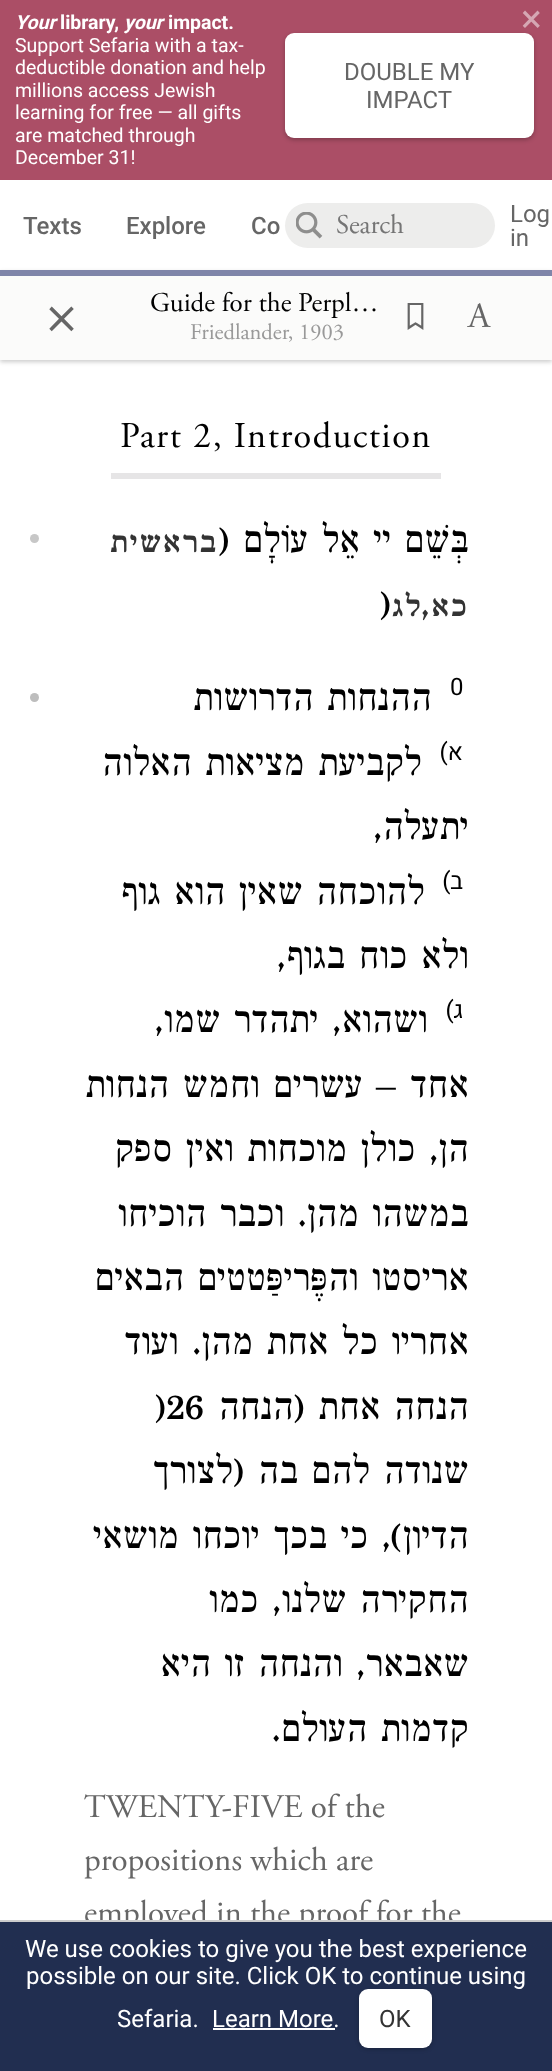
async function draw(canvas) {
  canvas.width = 552;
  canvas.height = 2071;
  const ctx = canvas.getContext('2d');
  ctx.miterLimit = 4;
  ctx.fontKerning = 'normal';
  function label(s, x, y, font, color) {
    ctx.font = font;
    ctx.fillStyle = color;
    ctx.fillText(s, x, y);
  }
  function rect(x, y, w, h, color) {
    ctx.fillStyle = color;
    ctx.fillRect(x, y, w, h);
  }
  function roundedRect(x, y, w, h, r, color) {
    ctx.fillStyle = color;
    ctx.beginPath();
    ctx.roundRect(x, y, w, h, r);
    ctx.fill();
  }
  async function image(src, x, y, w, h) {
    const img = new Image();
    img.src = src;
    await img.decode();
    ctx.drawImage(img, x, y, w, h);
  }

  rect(0, 0, 552, 2071, '#fff');
  rect(0, 0, 552, 180, '#ab4e66');
  label('Your', 15, 29, 'italic bold 19.5px Roboto', '#fff');
  label('library,', 60, 29, 'bold 19.5px Roboto', '#fff');
  label('your', 124, 29, 'italic bold 19.5px Roboto', '#fff');
  label('impact.', 168, 29, 'bold 19.5px Roboto', '#fff');
  label('Support Sefaria with a tax-', 15, 52, '19.5px Roboto', '#fff');
  label('deductible donation and help', 15, 74, '19.5px Roboto', '#fff');
  label('millions access Jewish', 15, 97, '19.5px Roboto', '#fff');
  label('learning for free — all gifts', 15, 119, '19.5px Roboto', '#fff');
  label('are matched through', 15, 142, '19.5px Roboto', '#fff');
  label('December 31!', 15, 164, '19.5px Roboto', '#fff');
  ctx.fillStyle = '#00000040';
  ctx.filter = 'blur(2px)';
  ctx.beginPath();
  ctx.roundRect(285, 35, 249, 105, 9);
  ctx.fill();
  ctx.filter = 'none';
  roundedRect(285, 33, 249, 105, 9, '#fff');
  label('DOUBLE MY', 344, 80, '24px Roboto', '#666');
  label('IMPACT', 366, 108, '24px Roboto', '#666');
  label('×', 521, 32, '39px Roboto', '#d5a7b3');
  label('Texts', 23, 234, '500 24px Roboto', '#666');
  label('Explore', 126, 234, '500 24px Roboto', '#666');
  label('Co', 251, 234, '500 24px Roboto', '#666');
  roundedRect(285, 203, 210, 45, 22.5, '#ededec');
  await image('assets/img1.png', 296, 212, 27, 27);
  label('Search', 336, 233, '27px Adobe Garamond', '#757575');
  label('Log', 510, 222, '24px Roboto', '#666');
  label('in', 510, 246, '24px Roboto', '#666');
  ctx.fillStyle = '#00000033';
  ctx.filter = 'blur(2px)';
  ctx.beginPath();
  ctx.rect(0, 272, 552, 90);
  ctx.fill();
  ctx.filter = 'none';
  rect(0, 270, 552, 6, '#7f85a9');
  rect(0, 276, 552, 84, '#fbfbfa');
  label('×', 45, 332, '66px Adobe Garamond', '#666');
  label('Guide for the Perpl…', 150, 311, '27px Adobe Garamond', '#000');
  label('Friedlander, 1903', 190, 339, '22.5px Adobe Garamond', '#999');
  await image('assets/img2.png', 407, 303, 17, 27);
  await image('assets/img3.png', 467, 303, 24, 24);
  rect(111, 473, 330, 6, '#e6e5e6');
  ctx.letterSpacing = '1.5px';
  label('Part 2, Introduction', 120, 447, '36.25px Adobe Garamond', '#000');
  ctx.fillStyle = '#c7c7c7';
  ctx.beginPath();
  ctx.arc(34.5, 538.5, 4.5, 0, 2 * Math.PI);
  ctx.fill();
  ctx.direction = 'rtl';
  label('בראשית', 217, 552, 'bold 32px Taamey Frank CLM', '#333');
  ctx.letterSpacing = '0px';
  label('בְּשֵׁם יי אֵל עוֹלָם (', 468, 552, '500 40.25px Taamey Frank CLM', '#000');
  ctx.direction = 'ltr';
  label(')', 379, 616, '500 40.25px Taamey Frank CLM', '#000');
  ctx.letterSpacing = '1.5px';
  ctx.direction = 'rtl';
  label('כא,לג', 468, 616, 'bold 32px Taamey Frank CLM', '#333');
  ctx.fillStyle = '#bdbdbd';
  ctx.beginPath();
  ctx.arc(34.5, 697.5, 4.5, 0, 2 * Math.PI);
  ctx.fill();
  ctx.letterSpacing = '0px';
  label('ההנחות הדרושות', 431, 710, '500 40.25px Taamey Frank CLM', '#000');
  ctx.direction = 'ltr';
  label('0', 450, 695, '24px Heebo', '#000');
  ctx.direction = 'rtl';
  label('לקביעת מציאות האלוה', 421, 775, '500 40.25px Taamey Frank CLM', '#000');
  label('א)', 463, 760, '24px Heebo', '#000');
  label('יתעלה,', 468, 839, '500 40.25px Taamey Frank CLM', '#000');
  label('להוכחה שאין הוא גוף', 424, 904, '500 40.25px Taamey Frank CLM', '#000');
  label('ב)', 463, 889, '24px Heebo', '#000');
  label('ולא כוח בגוף,', 468, 968, '500 40.25px Taamey Frank CLM', '#000');
  label('ושהוא, יתהדר שמו,', 427, 1032, '500 40.25px Taamey Frank CLM', '#000');
  label('ג)', 463, 1018, '24px Heebo', '#000');
  label('עשרים וחמש הנחות', 362, 1097, '500 40.25px Taamey Frank CLM', '#000');
  label('–', 396, 1097, '40.25px Adobe Garamond', '#000');
  label('אחד', 468, 1097, '500 40.25px Taamey Frank CLM', '#000');
  label('הן, כולן מוכחות ואין ספק', 468, 1161, '500 40.25px Taamey Frank CLM', '#000');
  label('במשהו מהן. וכבר הוכיחו', 468, 1226, '500 40.25px Taamey Frank CLM', '#000');
  label('אריסטו והפֶּריפַּטטים הבאים', 468, 1290, '500 40.25px Taamey Frank CLM', '#000');
  label('אחריו כל אחת מהן. ועוד', 468, 1354, '500 40.25px Taamey Frank CLM', '#000');
  ctx.direction = 'ltr';
  label(')26', 154, 1419, '500 40.25px Taamey Frank CLM', '#000');
  ctx.direction = 'rtl';
  label('הנחה אחת (הנחה', 468, 1419, '500 40.25px Taamey Frank CLM', '#000');
  label('שנודה להם בה (לצורך', 468, 1483, '500 40.25px Taamey Frank CLM', '#000');
  label('הדיון), כי בכך יוכחו מושאי', 468, 1548, '500 40.25px Taamey Frank CLM', '#000');
  label('החקירה שלנו, כמו', 468, 1612, '500 40.25px Taamey Frank CLM', '#000');
  label('שאבאר, והנחה זו היא', 468, 1676, '500 40.25px Taamey Frank CLM', '#000');
  label('קדמות העולם.', 468, 1741, '500 40.25px Taamey Frank CLM', '#000');
  ctx.direction = 'ltr';
  label('TWENTY-FIVE of the', 84, 1817, '33px Adobe Garamond', '#666');
  label('propositions which are', 84, 1870, '33px Adobe Garamond', '#666');
  label('employed in the proof for the', 84, 1923, '33px Adobe Garamond', '#666');
  rect(0, 1922, 552, 149, '#212e50');
  rect(0, 1920, 552, 2, '#ccc');
  label('We use cookies to give you the best experience', 25, 1957, '24px Roboto', '#fff');
  label('possible on our site. Click OK to continue using', 26, 1984, '24px Roboto', '#fff');
  label('Sefaria.', 117, 2027, '24px Roboto', '#fff');
  label('Learn More.', 212, 2027, '24px Roboto', '#fff');
  rect(213, 2028, 122, 2, '#fff');
  ctx.fillStyle = '#00000040';
  ctx.filter = 'blur(2px)';
  ctx.beginPath();
  ctx.roundRect(359, 1991, 73, 58, 9);
  ctx.fill();
  ctx.filter = 'none';
  roundedRect(359, 1989, 73, 59, 9, '#fff');
  label('OK', 379, 2027, '24px Roboto', '#333');
}

draw(document.querySelector('canvas'));
